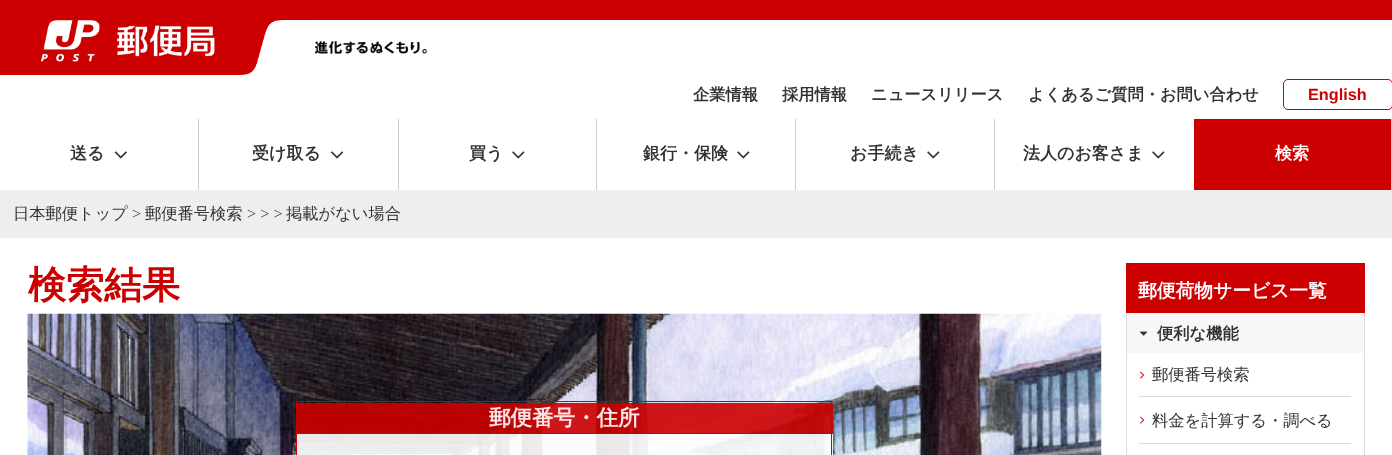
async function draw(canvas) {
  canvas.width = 1392;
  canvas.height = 455;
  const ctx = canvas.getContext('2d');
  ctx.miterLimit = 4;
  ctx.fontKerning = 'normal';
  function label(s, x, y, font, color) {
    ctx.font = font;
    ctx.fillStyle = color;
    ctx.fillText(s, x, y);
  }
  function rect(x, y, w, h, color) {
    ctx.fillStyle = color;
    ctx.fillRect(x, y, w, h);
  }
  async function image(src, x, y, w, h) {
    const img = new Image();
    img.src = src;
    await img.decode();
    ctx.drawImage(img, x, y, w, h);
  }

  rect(0, 0, 1392, 455, '#fff');
  rect(0, 0, 1392, 20, '#c00');
  await image('assets/img1.png', 0, 20, 314, 55);
  await image('assets/img2.png', 315, 41, 113, 13);
  label('企業情報', 693, 100, 'bold 16.25px WenQuanYi Zen Hei', '#333');
  label('採用情報', 782, 100, 'bold 16.25px WenQuanYi Zen Hei', '#333');
  label('ニュースリリース', 871, 100, 'bold 16.25px WenQuanYi Zen Hei', '#333');
  label('よくあるご質問・お問い合わせ', 1028, 100, 'bold 16.25px WenQuanYi Zen Hei', '#333');
  ctx.beginPath();
  ctx.roundRect(1283.5, 79.5, 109, 30, 4.5);
  ctx.strokeStyle = '#c00';
  ctx.stroke();
  label('English', 1308, 100, 'bold 16.25px Liberation Sans', '#c00');
  rect(198, 119, 1, 71, '#ccc');
  label('送る', 70, 159, 'bold 17px WenQuanYi Zen Hei', '#333');
  await image('assets/img3.png', 114, 151, 13, 8);
  rect(398, 119, 1, 71, '#ccc');
  label('受け取る', 252, 159, 'bold 17px WenQuanYi Zen Hei', '#333');
  await image('assets/img4.png', 331, 151, 13, 8);
  rect(596, 119, 1, 71, '#ccc');
  label('買う', 469, 159, 'bold 17px WenQuanYi Zen Hei', '#333');
  await image('assets/img5.png', 512, 151, 13, 8);
  rect(795, 119, 1, 71, '#ccc');
  label('銀行・保険', 643, 159, 'bold 17px WenQuanYi Zen Hei', '#333');
  await image('assets/img5.png', 737, 151, 13, 8);
  rect(994, 119, 1, 71, '#ccc');
  label('お手続き', 850, 159, 'bold 17px WenQuanYi Zen Hei', '#333');
  await image('assets/img5.png', 927, 151, 13, 8);
  label('法人のお客さま', 1023, 159, 'bold 17px WenQuanYi Zen Hei', '#333');
  await image('assets/img5.png', 1152, 151, 13, 8);
  rect(1194, 119, 197, 71, '#c00');
  rect(1391, 119, 1, 71, '#ccc');
  label('検索', 1275, 159, 'bold 17px WenQuanYi Zen Hei', '#fff');
  rect(0, 190, 1392, 48, '#eee');
  label('日本郵便トップ', 13, 219, '500 16.25px WenQuanYi Zen Hei', '#333');
  label('>', 132, 219, '16.25px Liberation Serif', '#333');
  label('郵便番号検索', 145, 219, '500 16.25px WenQuanYi Zen Hei', '#333');
  label('> > >', 247, 219, '16.25px Liberation Serif', '#333');
  label('掲載がない場合', 286, 219, '500 16.25px WenQuanYi Zen Hei', '#333');
  label('検索結果', 28, 298, 'bold 38px WenQuanYi Zen Hei', '#c00');
  await image('assets/img6.png', 27, 313, 1075, 142);
  rect(296, 401, 537, 1, '#cc0000e6');
  rect(296, 403, 537, 31, '#cc0000e6');
  rect(296, 434, 537, 21, '#ffffffe6');
  rect(831, 401, 1, 54, '#cc0000e6');
  rect(296, 401, 1, 54, '#cc0000e6');
  rect(296, 401, 537, 1, '#cc0000e6');
  rect(831, 401, 1, 2, '#cc0000e6');
  rect(296, 401, 1, 2, '#cc0000e6');
  label('郵便番号・住所', 489, 425, 'bold 21.5px WenQuanYi Zen Hei', '#f9e6e6');
  rect(296, 433, 537, 1, '#cc0000e6');
  rect(831, 433, 1, 22, '#cc0000e6');
  rect(296, 433, 1, 22, '#cc0000e6');
  rect(1126, 263, 239, 50, '#c00');
  label('郵便荷物サービス一覧', 1138, 297, 'bold 18.75px WenQuanYi Zen Hei', '#fff');
  rect(1127, 313, 237, 40, '#f7f7f7');
  await image('assets/img7.png', 1140, 331, 8, 5);
  label('便利な機能', 1157, 339, 'bold 16.25px WenQuanYi Zen Hei', '#333');
  rect(1364, 313, 1, 142, '#dcdcdc');
  rect(1126, 313, 1, 142, '#dcdcdc');
  await image('assets/img8.png', 1140, 371, 5, 8);
  label('郵便番号検索', 1152, 380, '500 16.25px WenQuanYi Zen Hei', '#333');
  rect(1139, 396, 212, 1, '#dcdcdc');
  await image('assets/img8.png', 1140, 416, 5, 8);
  label('料金を計算する・調べる', 1152, 426, '500 16.25px WenQuanYi Zen Hei', '#333');
  rect(1139, 443, 212, 1, '#dcdcdc');
}

draw(document.querySelector('canvas'));
